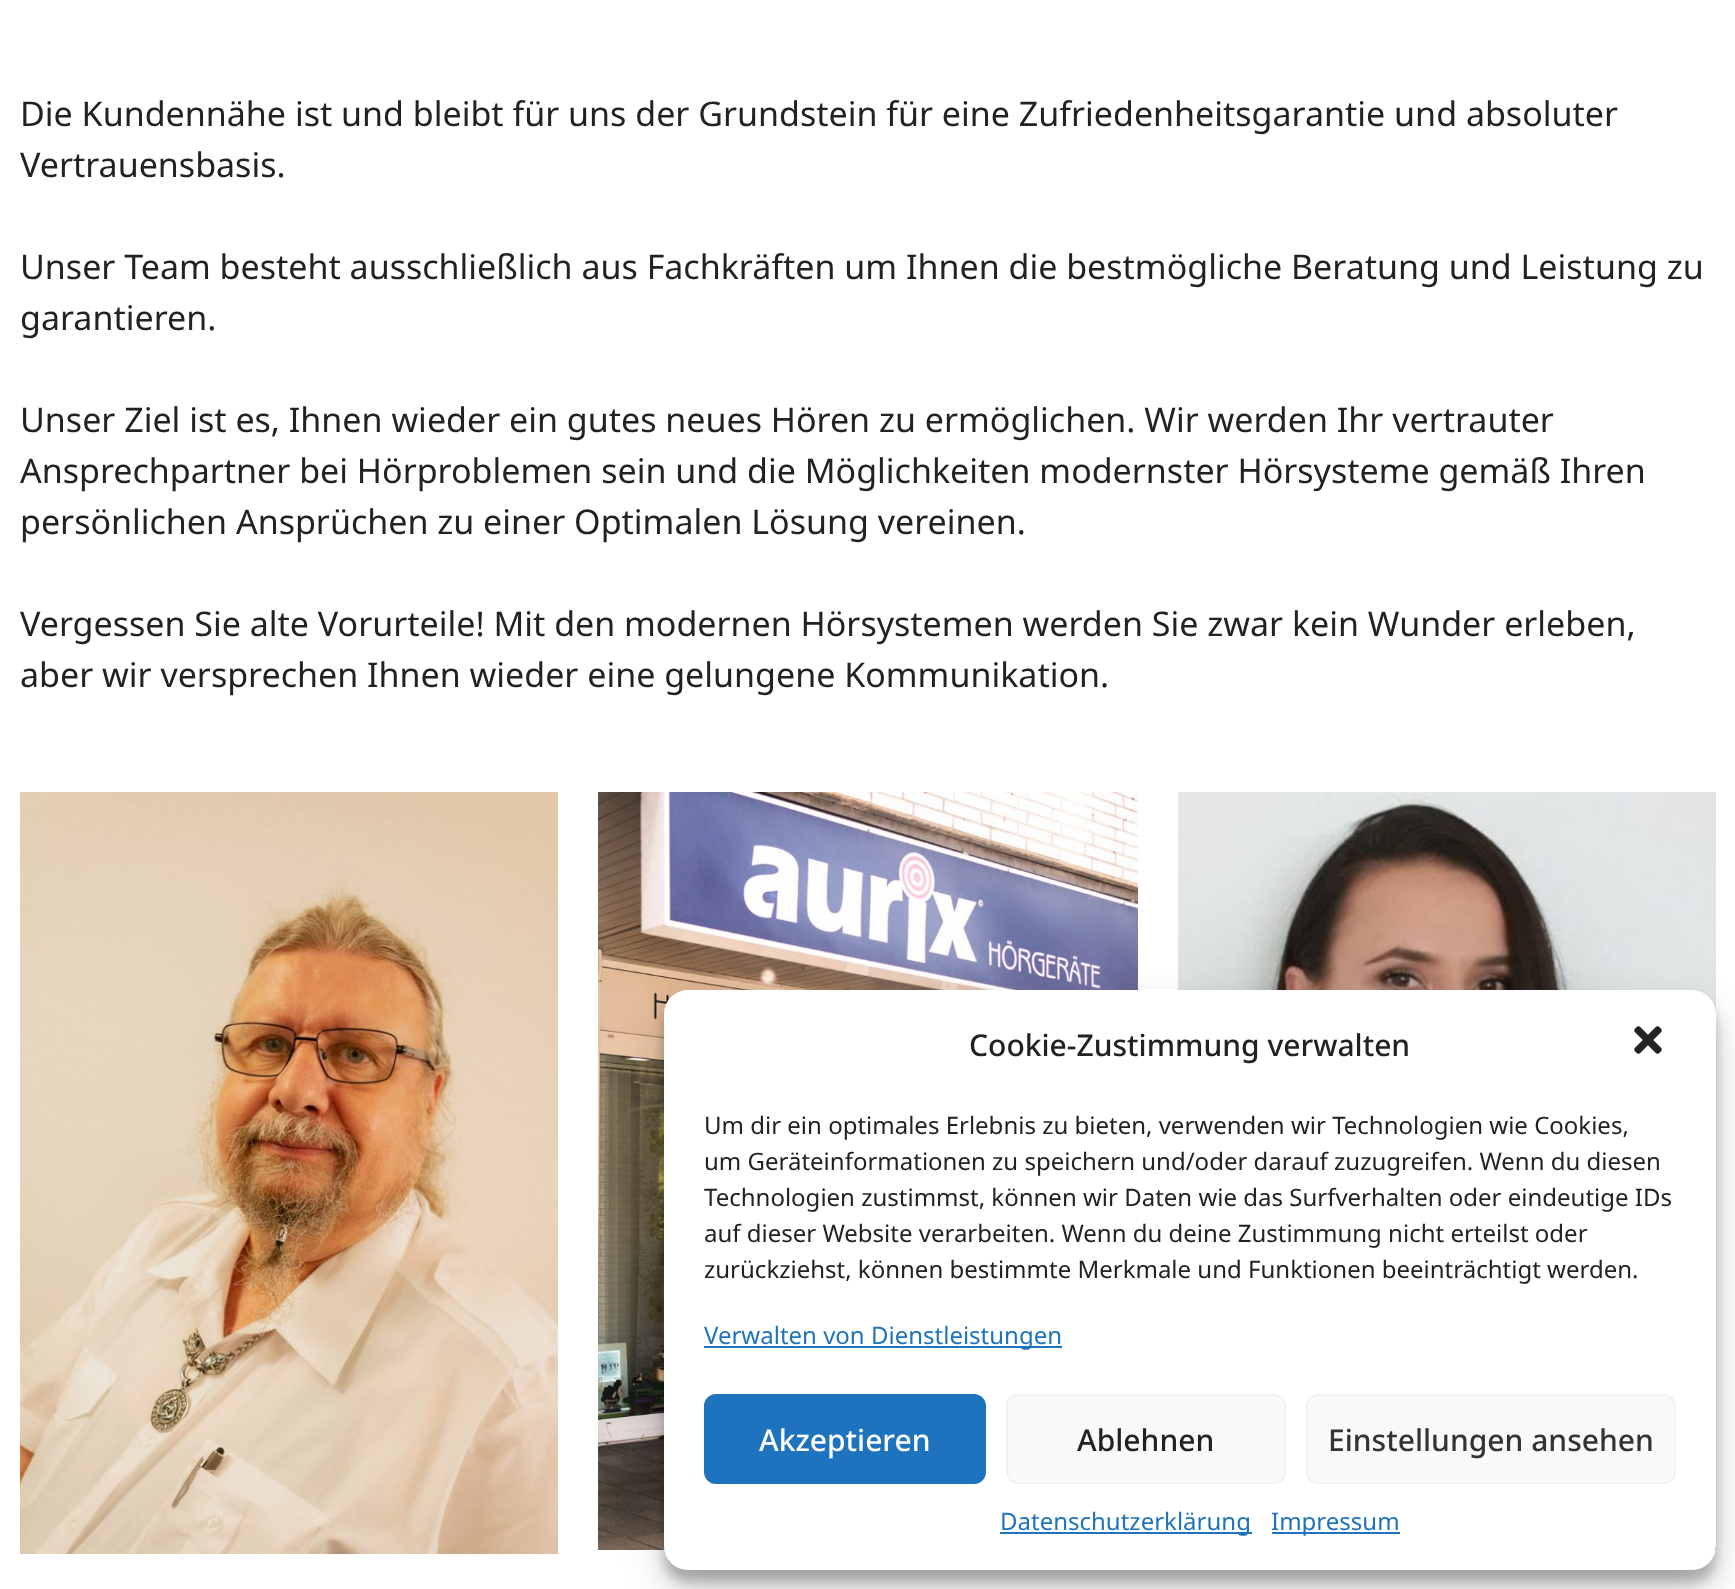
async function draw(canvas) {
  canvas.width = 1735;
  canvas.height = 1589;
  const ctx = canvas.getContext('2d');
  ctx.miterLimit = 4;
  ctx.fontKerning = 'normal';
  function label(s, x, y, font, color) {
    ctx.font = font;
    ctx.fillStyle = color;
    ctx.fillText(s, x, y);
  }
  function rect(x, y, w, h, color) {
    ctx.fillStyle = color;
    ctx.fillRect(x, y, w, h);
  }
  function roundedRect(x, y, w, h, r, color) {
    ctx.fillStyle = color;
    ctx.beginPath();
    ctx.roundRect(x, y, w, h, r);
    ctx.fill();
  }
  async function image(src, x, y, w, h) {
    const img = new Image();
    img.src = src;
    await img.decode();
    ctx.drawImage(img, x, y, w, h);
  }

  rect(0, 0, 1735, 1589, '#fff');
  label('Die Kundennähe ist und bleibt für uns der Grundstein für eine Zufriedenheitsgarantie und absoluter', 20, 126, '34px Noto Sans', '#222');
  label('Vertrauensbasis.', 20, 177, '34px Noto Sans', '#222');
  label('Unser Team besteht ausschließlich aus Fachkräften um Ihnen die bestmögliche Beratung und Leistung zu', 20, 279, '34px Noto Sans', '#222');
  label('garantieren.', 20, 330, '34px Noto Sans', '#222');
  label('Unser Ziel ist es, Ihnen wieder ein gutes neues Hören zu ermöglichen. Wir werden Ihr vertrauter', 20, 432, '34px Noto Sans', '#222');
  label('Ansprechpartner bei Hörproblemen sein und die Möglichkeiten modernster Hörsysteme gemäß Ihren', 20, 483, '34px Noto Sans', '#222');
  label('persönlichen Ansprüchen zu einer Optimalen Lösung vereinen.', 20, 534, '34px Noto Sans', '#222');
  label('Vergessen Sie alte Vorurteile! Mit den modernen Hörsystemen werden Sie zwar kein Wunder erleben,', 20, 636, '34px Noto Sans', '#222');
  label('aber wir versprechen Ihnen wieder eine gelungene Kommunikation.', 20, 687, '34px Noto Sans', '#222');
  await image('assets/img1.png', 20, 792, 538, 762);
  await image('assets/img2.png', 598, 792, 540, 758);
  await image('assets/img3.png', 1178, 792, 538, 758);
  ctx.fillStyle = '#0000003b';
  ctx.filter = 'blur(6px)';
  ctx.beginPath();
  ctx.roundRect(664, 1002, 1052, 580, 24);
  ctx.fill();
  ctx.filter = 'none';
  ctx.fillStyle = '#00000030';
  ctx.filter = 'blur(20px)';
  ctx.beginPath();
  ctx.roundRect(664, 1010, 1052, 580, 24);
  ctx.fill();
  ctx.filter = 'none';
  roundedRect(664, 990, 1052, 580, 24, '#fff');
  label('Cookie-Zustimmung verwalten', 969, 1056, '500 30px Noto Sans', '#222');
  await image('assets/img4.png', 1634, 1026, 28, 28);
  label('Um dir ein optimales Erlebnis zu bieten, verwenden wir Technologien wie Cookies,', 704, 1134, '24px Noto Sans', '#222');
  label('um Geräteinformationen zu speichern und/oder darauf zuzugreifen. Wenn du diesen', 704, 1170, '24px Noto Sans', '#222');
  label('Technologien zustimmst, können wir Daten wie das Surfverhalten oder eindeutige IDs', 704, 1206, '24px Noto Sans', '#222');
  label('auf dieser Website verarbeiten. Wenn du deine Zustimmung nicht erteilst oder', 704, 1242, '24px Noto Sans', '#222');
  label('zurückziehst, können bestimmte Merkmale und Funktionen beeinträchtigt werden.', 704, 1278, '24px Noto Sans', '#222');
  rect(704, 1346, 358, 2, '#1e73be');
  label('Verwalten von Dienstleistungen', 704, 1344, '24px Noto Sans', '#1e73be');
  ctx.beginPath();
  ctx.roundRect(705, 1395, 280, 88, 11);
  ctx.fill();
  ctx.strokeStyle = '#1e73be';
  ctx.lineWidth = 2;
  ctx.stroke();
  label('Akzeptieren', 759, 1451, '500 30px Noto Sans', '#fff');
  ctx.fillStyle = '#f9f9f9';
  ctx.beginPath();
  ctx.roundRect(1007, 1395, 278, 88, 11);
  ctx.fill();
  ctx.strokeStyle = '#f2f2f2';
  ctx.stroke();
  label('Ablehnen', 1077, 1451, '500 30px Noto Sans', '#222');
  ctx.fillStyle = '#f9f9f9';
  ctx.beginPath();
  ctx.roundRect(1307, 1395, 368, 88, 11);
  ctx.fill();
  ctx.stroke();
  label('Einstellungen ansehen', 1328, 1451, '500 30px Noto Sans', '#333');
  rect(1000, 1532, 252, 2, '#1e73be');
  label('Datenschutzerklärung', 1000, 1530, '24px Noto Sans', '#1e73be');
  rect(1272, 1532, 128, 2, '#1e73be');
  label('Impressum', 1271, 1530, '24px Noto Sans', '#1e73be');
}

draw(document.querySelector('canvas'));
